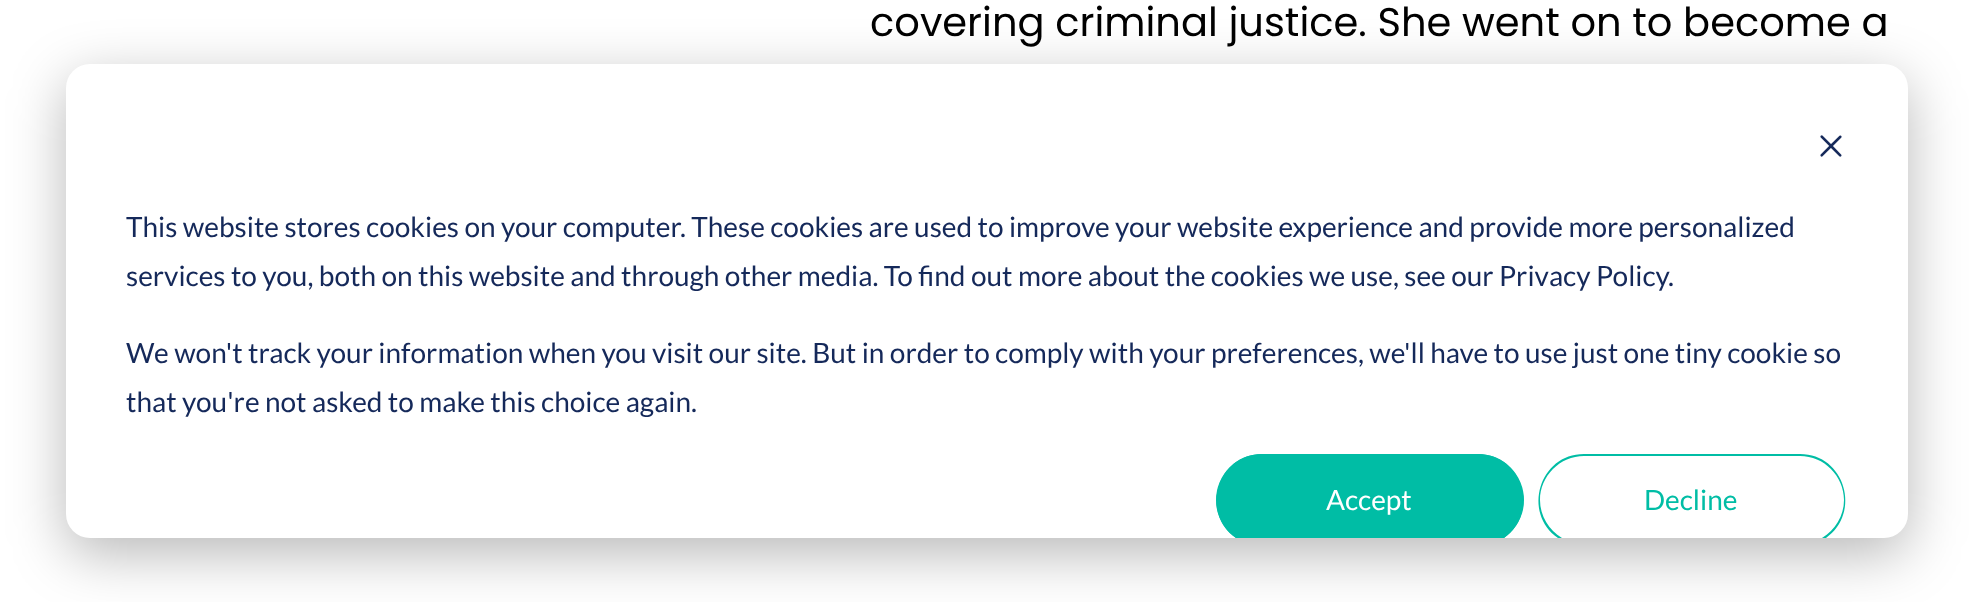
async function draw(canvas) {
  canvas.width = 1969;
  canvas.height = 602;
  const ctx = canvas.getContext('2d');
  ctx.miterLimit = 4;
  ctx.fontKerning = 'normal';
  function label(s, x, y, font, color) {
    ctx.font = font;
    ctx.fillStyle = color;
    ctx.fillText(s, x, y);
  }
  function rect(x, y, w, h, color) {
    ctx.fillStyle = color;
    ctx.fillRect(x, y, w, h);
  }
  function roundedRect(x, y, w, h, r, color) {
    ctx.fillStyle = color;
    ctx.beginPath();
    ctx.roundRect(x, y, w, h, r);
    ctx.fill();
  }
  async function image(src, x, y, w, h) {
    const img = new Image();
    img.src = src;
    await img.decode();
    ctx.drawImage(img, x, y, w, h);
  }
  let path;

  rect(0, 0, 1969, 602, '#fff');
  label('covering criminal justice. She went on to become a', 870, 36, '40px Poppins', '#000');
  ctx.fillStyle = '#00000047';
  ctx.filter = 'blur(28px)';
  ctx.beginPath();
  ctx.roundRect(66, 80, 1842, 474, 24);
  ctx.fill();
  ctx.filter = 'none';
  roundedRect(66, 64, 1842, 474, 24, '#fff');
  await image('assets/img1.png', 1820, 135, 22, 22);
  label('This website stores cookies on your computer. These cookies are used to improve your website experience and provide more personalized', 126, 237, '28px Lato', '#15295a');
  label('services to you, both on this website and through other media. To find out more about the cookies we use, see our Privacy Policy.', 126, 286, '28px Lato', '#15295a');
  label('We won\'t track your information when you visit our site. But in order to comply with your preferences, we\'ll have to use just one tiny cookie so', 126, 363, '28px Lato', '#15295a');
  label('that you\'re not asked to make this choice again.', 126, 412, '28px Lato', '#15295a');
  ctx.save();
  ctx.beginPath();
  ctx.roundRect(66, 64, 1842, 474, 24);
  ctx.clip();
  roundedRect(1216, 454, 308, 92, 46, '#00bda5');
  ctx.restore();
  ctx.fillStyle = '#00bda5';
  path = new Path2D('M1262 454C1217 454 1200 513 1236 538H1240C1227 530 1218 516 1218 500C1218 476 1238 456 1262 456H1478C1502 456 1522 476 1522 500C1522 516 1513 530 1500 538H1504C1540 513 1523 454 1478 454Z');
  ctx.fill(path);
  label('Accept', 1326, 510, '28px Lato', '#fff');
  ctx.fillStyle = '#00bda5';
  path = new Path2D('M1584 454C1539 454 1522 513 1558 538H1562C1549 530 1540 516 1540 500C1540 476 1560 456 1584 456H1800C1824 456 1844 476 1844 500C1844 516 1835 530 1822 538H1826C1862 513 1845 454 1800 454Z');
  ctx.fill(path);
  label('Decline', 1644, 510, '28px Lato', '#00bda5');
}

draw(document.querySelector('canvas'));
